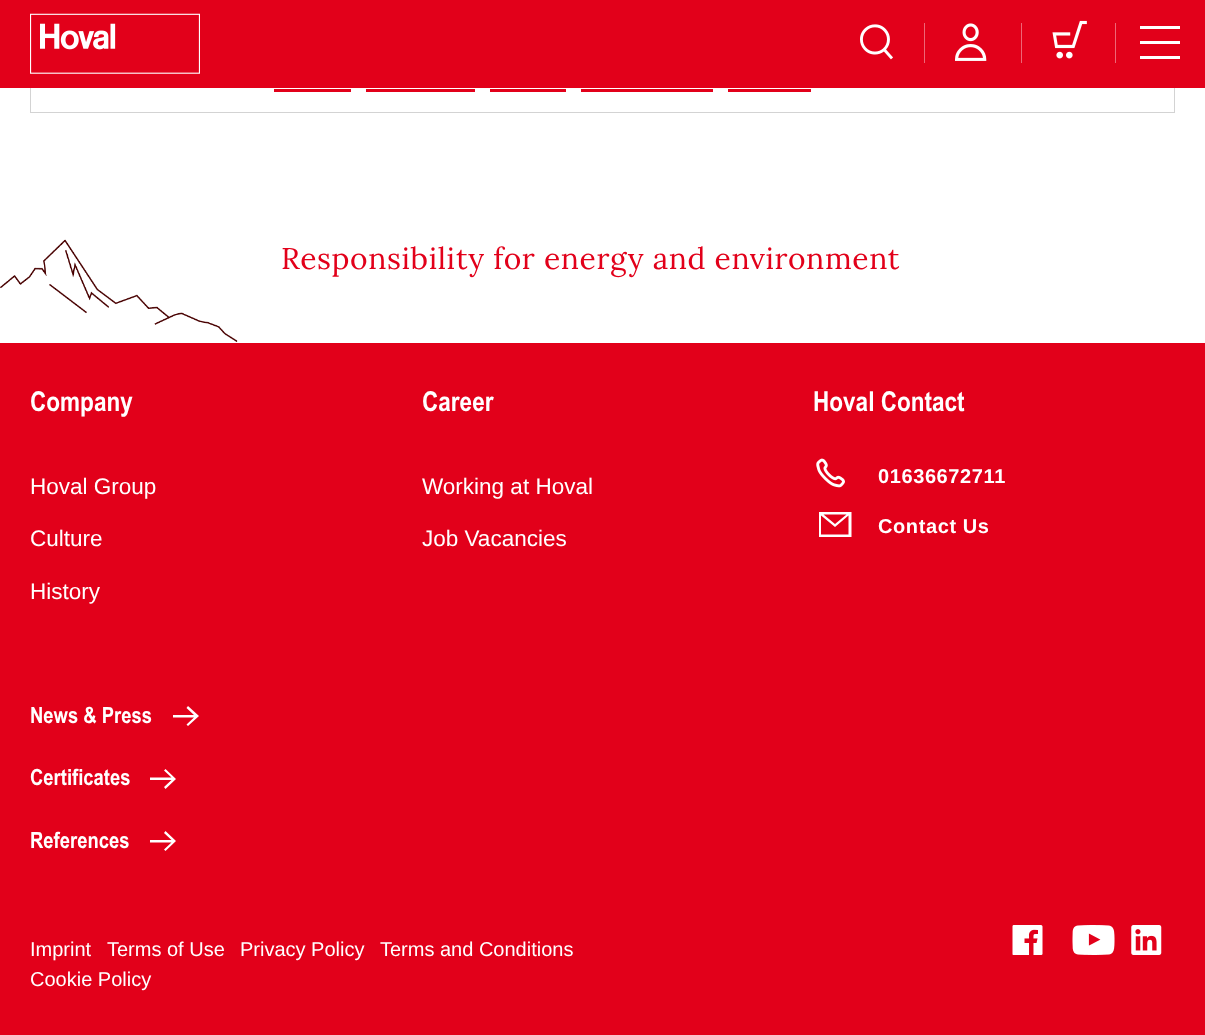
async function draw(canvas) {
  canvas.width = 1205;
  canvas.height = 1035;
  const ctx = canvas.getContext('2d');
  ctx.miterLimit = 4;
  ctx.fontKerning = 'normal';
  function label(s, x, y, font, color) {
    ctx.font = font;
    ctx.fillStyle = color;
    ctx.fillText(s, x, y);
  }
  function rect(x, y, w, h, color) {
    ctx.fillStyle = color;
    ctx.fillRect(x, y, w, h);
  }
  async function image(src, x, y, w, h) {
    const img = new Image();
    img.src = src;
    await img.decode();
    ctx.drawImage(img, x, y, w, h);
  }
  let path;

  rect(0, 0, 1205, 1035, '#fff');
  ctx.strokeStyle = '#d3d3d3';
  ctx.strokeRect(30.5, -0.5, 1144, 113);
  rect(274, 89, 77, 3, '#e2001a');
  rect(366, 89, 109, 3, '#e2001a');
  rect(490, 89, 76, 3, '#e2001a');
  rect(581, 89, 132, 3, '#e2001a');
  rect(728, 89, 83, 3, '#e2001a');
  rect(0, 0, 1205, 88, '#e2001a');
  await image('assets/img1.png', 30, 13, 170, 61);
  await image('assets/img2.png', 860, 24, 33, 36);
  rect(924, 23, 1, 40, '#ee6676');
  await image('assets/img3.png', 955, 23, 32, 38);
  rect(1021, 23, 1, 40, '#ee6676');
  await image('assets/img4.png', 1052, 20, 35, 39);
  rect(1115, 23, 1, 40, '#ee6676');
  rect(1140, 41, 40, 3, '#fff');
  rect(1140, 26, 40, 3, '#fff');
  rect(1140, 56, 40, 3, '#fff');
  await image('assets/img5.png', 0, 239, 238, 103);
  ctx.letterSpacing = '0.6px';
  label('Responsibility for energy and environment', 281, 269, '30px Lora', '#e2001a');
  rect(0, 343, 1205, 692, '#e2001a');
  ctx.letterSpacing = '0px';
  label('Company', 30, 411, 'bold 27.5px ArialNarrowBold', '#fff');
  label('Hoval Group', 30, 494, '22.5px Liberation Sans', '#fff');
  label('Culture', 30, 546, '22.5px Liberation Sans', '#fff');
  label('History', 30, 599, '22.5px Liberation Sans', '#fff');
  label('Career', 422, 411, 'bold 27.5px ArialNarrowBold', '#fff');
  label('Working at Hoval', 422, 494, '22.5px Liberation Sans', '#fff');
  label('Job Vacancies', 422, 546, '22.5px Liberation Sans', '#fff');
  label('Hoval Contact', 813, 411, 'bold 27.5px ArialNarrowBold', '#fff');
  await image('assets/img6.png', 816, 458, 29, 30);
  ctx.letterSpacing = '0.6px';
  label('01636672711', 878, 483, 'bold 20px Liberation Sans', '#fff');
  path = new Path2D('M819 512H851.5V537H819ZM846.5 514.5H823.5L835 524ZM821 534.5H848.5V515.5L835 527L821 515.5Z');
  ctx.fill(path);
  label('Contact Us', 878, 533, 'bold 20px Liberation Sans', '#fff');
  ctx.letterSpacing = '0px';
  label('News & Press', 30, 723, 'bold 22.5px ArialNarrowBold', '#fff');
  ctx.save();
  ctx.beginPath();
  ctx.rect(173, 706, 40, 20);
  ctx.clip();
  path = new Path2D('M188 706L199 716L188 726L186.5 724.5L194 717.5H164V715H194L186.5 708Z');
  ctx.fill(path);
  ctx.restore();
  label('Certificates', 30, 785, 'bold 22.5px ArialNarrowBold', '#fff');
  ctx.save();
  ctx.beginPath();
  ctx.rect(150, 769, 40, 20);
  ctx.clip();
  path = new Path2D('M165.5 769L176 779L165.5 789L164 787L171.5 780H141V777.5H171.5L164 770.5Z');
  ctx.fill(path);
  ctx.restore();
  label('References', 30, 848, 'bold 22.5px ArialNarrowBold', '#fff');
  ctx.save();
  ctx.beginPath();
  ctx.rect(150, 831, 40, 20);
  ctx.clip();
  path = new Path2D('M165.5 831L176 841L165.5 851L164 849.5L171.5 842.5H141V840H171.5L164 833Z');
  ctx.fill(path);
  ctx.restore();
  label('Imprint', 30, 956, '20px Liberation Sans', '#fff');
  label('Terms of Use', 107, 956, '20px Liberation Sans', '#fff');
  label('Privacy Policy', 240, 956, '20px Liberation Sans', '#fff');
  label('Terms and Conditions', 380, 956, '20px Liberation Sans', '#fff');
  label('Cookie Policy', 30, 986, '20px Liberation Sans', '#fff');
  await image('assets/img7.png', 1012, 925, 31, 30);
  await image('assets/img8.png', 1072, 925, 43, 30);
  await image('assets/img9.png', 1131, 925, 31, 30);
}

draw(document.querySelector('canvas'));
